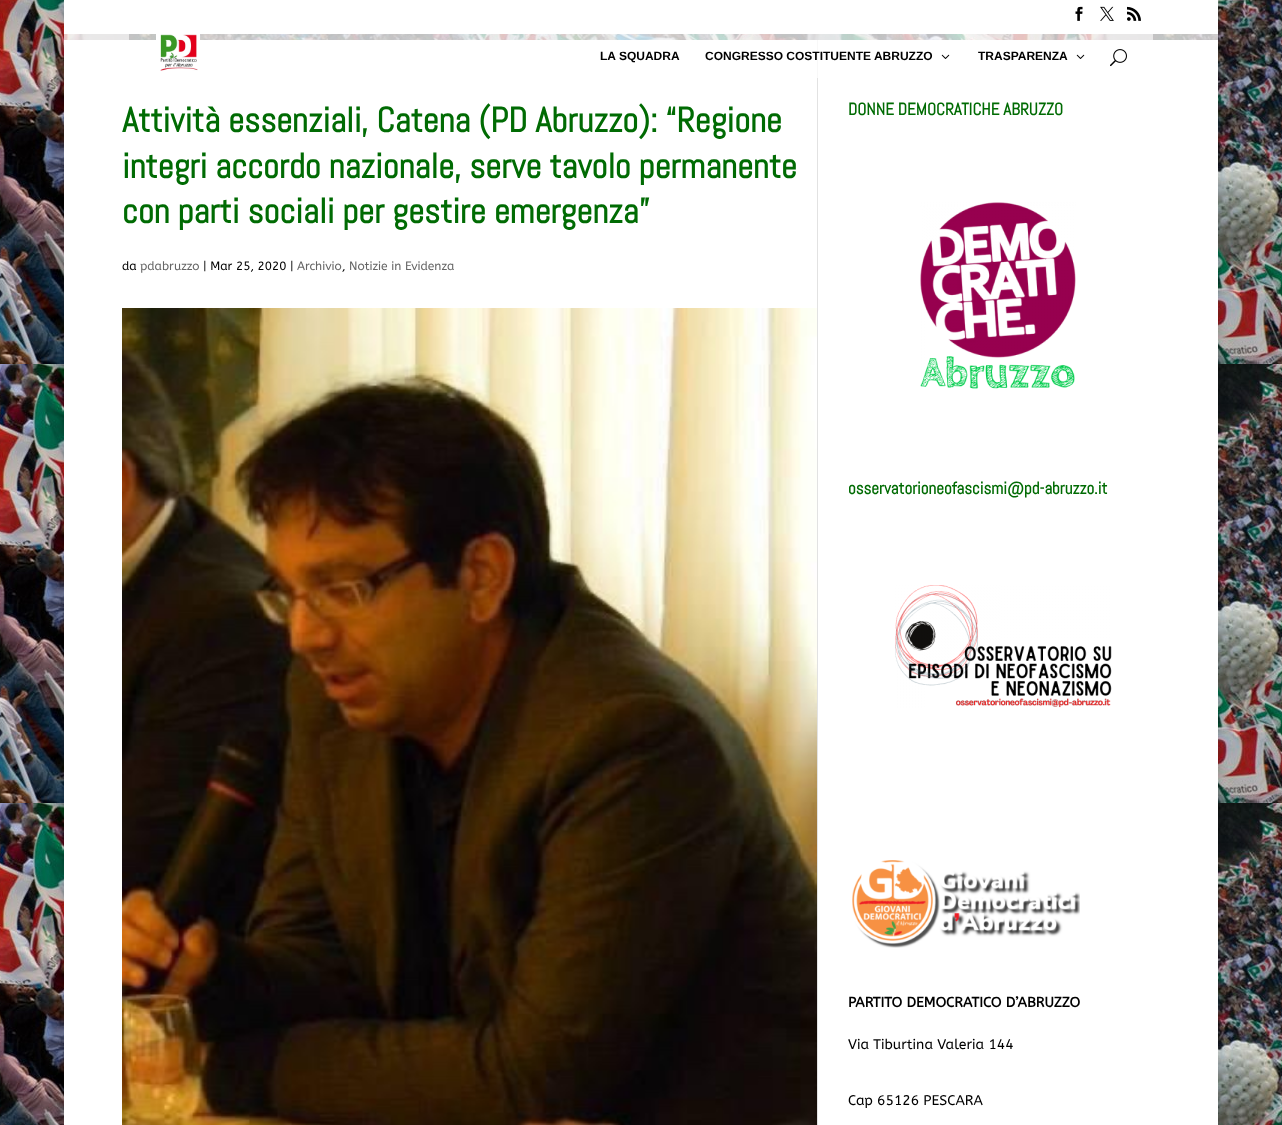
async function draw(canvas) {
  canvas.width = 1282;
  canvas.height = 1125;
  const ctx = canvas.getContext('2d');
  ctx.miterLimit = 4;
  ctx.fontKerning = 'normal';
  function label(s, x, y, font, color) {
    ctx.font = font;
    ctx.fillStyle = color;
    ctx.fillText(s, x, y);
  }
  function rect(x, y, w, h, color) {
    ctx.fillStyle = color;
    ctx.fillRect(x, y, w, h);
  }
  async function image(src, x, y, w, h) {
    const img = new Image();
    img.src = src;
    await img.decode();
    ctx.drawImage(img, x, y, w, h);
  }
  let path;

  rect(0, 0, 1282, 1125, '#fff');
  await image('assets/img1.png', 0, 0, 1282, 1125);
  ctx.save();
  path = new Path2D('M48 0H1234V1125H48ZM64-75H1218V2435H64Z');
  ctx.clip(path, 'evenodd');
  ctx.fillStyle = '#00000033';
  ctx.filter = 'blur(5px)';
  ctx.beginPath();
  ctx.rect(64, -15, 1154, 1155);
  ctx.fill();
  ctx.filter = 'none';
  ctx.restore();
  rect(64, 0, 1154, 34, '#fff');
  await image('assets/img2.png', 1075, 6, 8, 15);
  await image('assets/img3.png', 1100, 6, 14, 15);
  await image('assets/img4.png', 1127, 6, 14, 15);
  rect(64, 40, 1154, 1085, '#fff');
  rect(817, 40, 1, 1085, '#e2e2e2');
  rect(64, 34, 1154, 44, '#ffffffbd');
  await image('assets/img5.png', 156, 34, 44, 37);
  label('LA SQUADRA', 600, 60, 'bold 12px Liberation Sans', '#000');
  label('CONGRESSO COSTITUENTE ABRUZZO', 705, 60, 'bold 12px Liberation Sans', '#000');
  await image('assets/img6.png', 941, 54, 9, 5);
  label('TRASPARENZA', 978, 60, 'bold 12px Liberation Sans', '#000');
  await image('assets/img6.png', 1076, 54, 9, 5);
  await image('assets/img7.png', 1110, 49, 17, 18);
  label('Attività essenziali, Catena (PD Abruzzo): “Regione', 122, 132, 'bold 35px Abel', '#006b03');
  label('integri accordo nazionale, serve tavolo permanente', 122, 178, 'bold 35px Abel', '#006b03');
  label('con parti sociali per gestire emergenza”', 122, 223, 'bold 35px Abel', '#006b03');
  label('da', 122, 270, '12px ABeeZee', '#000');
  label('pdabruzzo', 140, 270, '12px ABeeZee', '#666');
  label('| Mar 25, 2020 |', 203, 270, '12px ABeeZee', '#000');
  label('Archivio', 297, 270, '12px ABeeZee', '#666');
  label(',', 342, 270, '12px ABeeZee', '#000');
  label('Notizie in Evidenza', 349, 270, '12px ABeeZee', '#666');
  await image('assets/img8.png', 122, 308, 695, 817);
  label('DONNE DEMOCRATICHE ABRUZZO', 848, 115, 'bold 17px Abel', '#006b03');
  await image('assets/img9.png', 920, 202, 156, 187);
  label('osservatorioneofascismi@pd-abruzzo.it', 848, 494, 'bold 17px Abel', '#006b03');
  await image('assets/img10.png', 895, 585, 217, 123);
  await image('assets/img11.png', 852, 860, 228, 88);
  label('PARTITO DEMOCRATICO D’ABRUZZO', 848, 1007, 'bold 14px ABeeZee', '#000');
  label('Via Tiburtina Valeria 144', 848, 1049, '14px ABeeZee', '#000');
  label('Cap 65126 PESCARA', 848, 1105, '14px ABeeZee', '#000');
}

draw(document.querySelector('canvas'));
